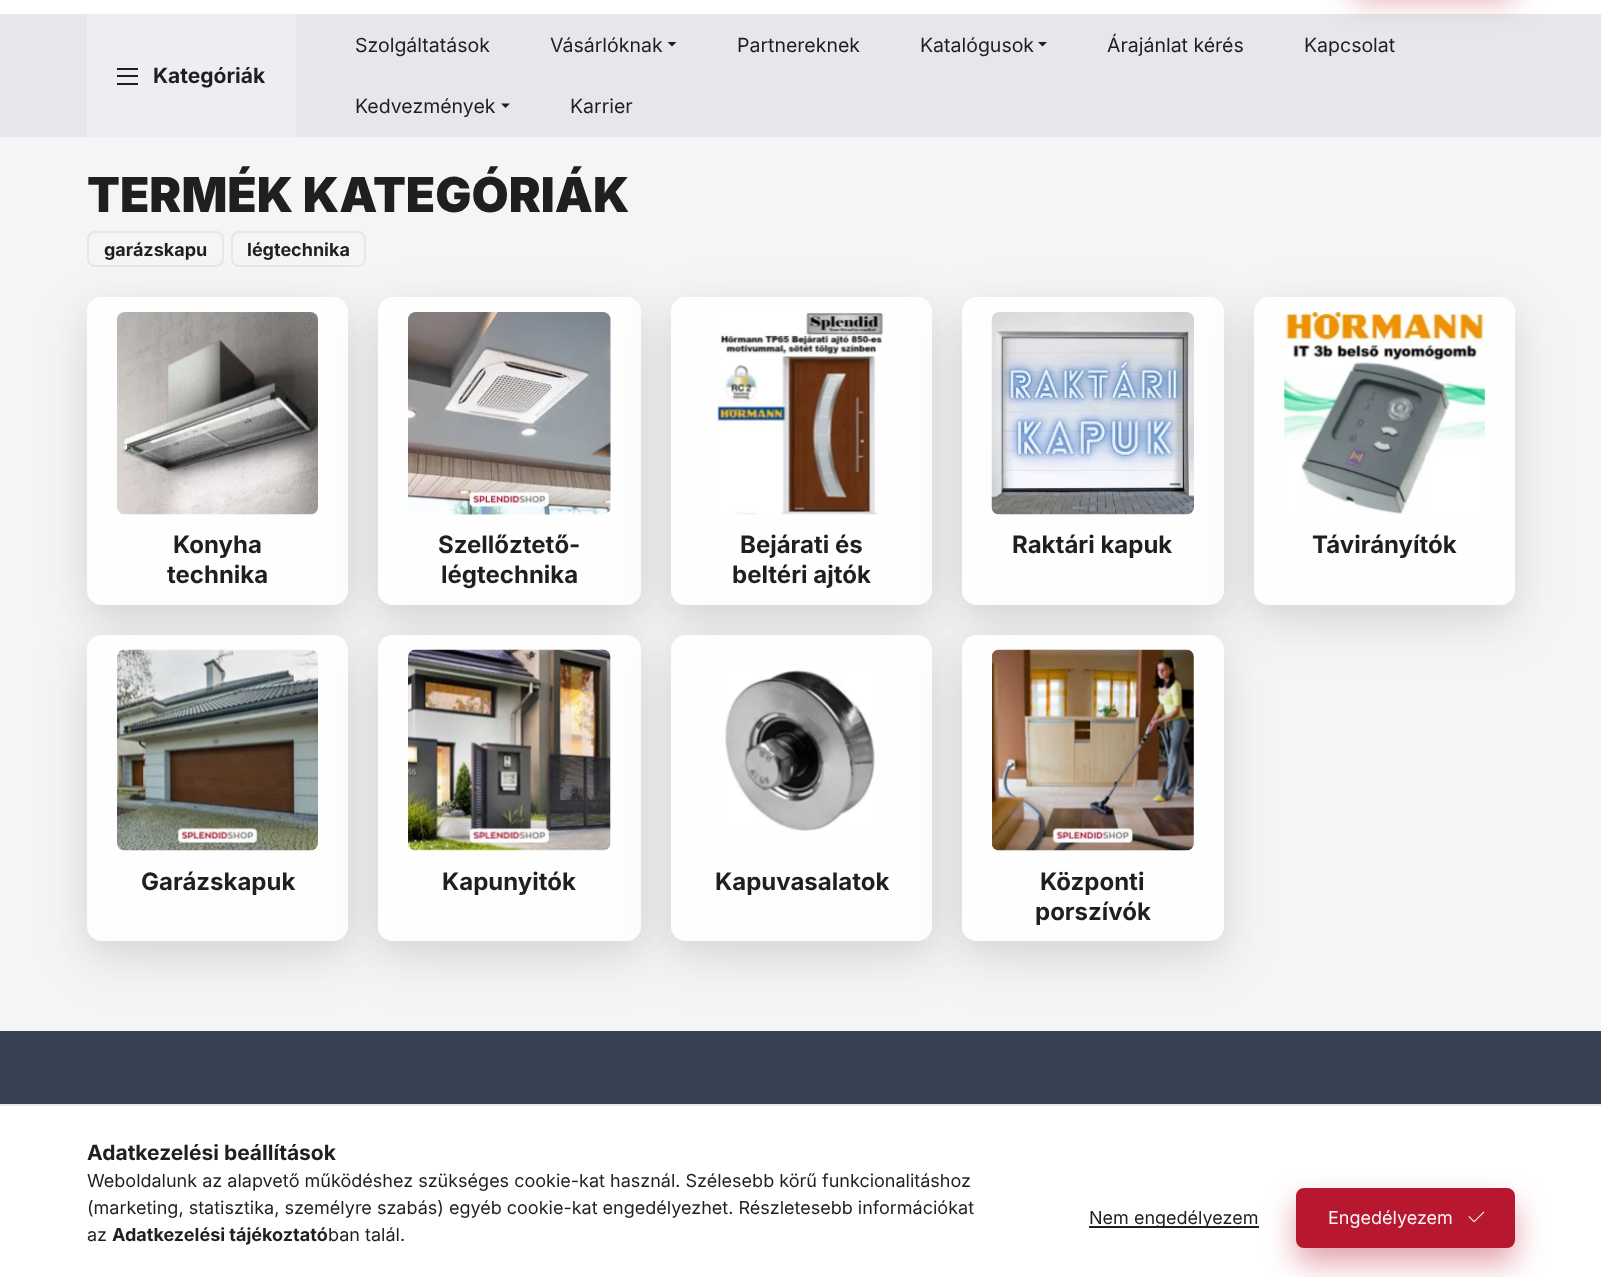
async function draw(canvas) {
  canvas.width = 1601;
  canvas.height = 1277;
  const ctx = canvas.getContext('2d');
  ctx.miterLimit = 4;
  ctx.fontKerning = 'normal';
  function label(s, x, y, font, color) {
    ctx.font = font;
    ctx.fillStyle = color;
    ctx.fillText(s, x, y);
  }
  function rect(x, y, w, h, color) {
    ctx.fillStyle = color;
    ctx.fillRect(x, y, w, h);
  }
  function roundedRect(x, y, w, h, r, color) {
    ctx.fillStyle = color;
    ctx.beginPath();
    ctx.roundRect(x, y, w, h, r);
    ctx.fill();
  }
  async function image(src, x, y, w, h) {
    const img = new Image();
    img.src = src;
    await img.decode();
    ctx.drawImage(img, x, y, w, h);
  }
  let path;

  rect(0, 0, 1601, 1277, '#f5f5f5');
  rect(0, 0, 1601, 14, '#fff');
  rect(0, 14, 1601, 123, '#e5e7eb');
  ctx.fillStyle = '#b8173066';
  ctx.filter = 'blur(15px)';
  ctx.beginPath();
  ctx.roundRect(1352, -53, 163, 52, 8);
  ctx.fill();
  ctx.filter = 'none';
  rect(87, 14, 209, 123, '#edeef1');
  rect(117, 68, 21, 2, '#1f1f1f');
  rect(117, 75, 21, 2, '#1f1f1f');
  rect(117, 83, 21, 2, '#1f1f1f');
  label('Kategóriák', 153, 83, 'bold 21px Inter', '#1f1f1f');
  label('Szolgáltatások', 355, 52, '19.5px Inter', '#1f1f1f');
  label('Vásárlóknak', 550, 52, '19.5px Inter', '#1f1f1f');
  path = new Path2D('M667.5 42H676.5L672 46.5Z');
  ctx.fill(path);
  label('Partnereknek', 737, 52, '19.5px Inter', '#1f1f1f');
  label('Katalógusok', 920, 52, '19.5px Inter', '#1f1f1f');
  path = new Path2D('M1038 42H1047L1042.5 46.5Z');
  ctx.fill(path);
  label('Árajánlat kérés', 1107, 52, '19.5px Inter', '#1f1f1f');
  label('Kapcsolat', 1304, 52, '19.5px Inter', '#1f1f1f');
  label('Kedvezmények', 355, 113, '19.5px Inter', '#1f1f1f');
  path = new Path2D('M501 103.5H510L505.5 108Z');
  ctx.fill(path);
  label('Karrier', 570, 113, '19.5px Inter', '#1f1f1f');
  label('TERMÉK KATEGÓRIÁK', 87, 212, '900 48px Inter', '#1f1f1f');
  ctx.beginPath();
  ctx.roundRect(88, 232, 135, 34, 7);
  ctx.strokeStyle = '#e5e7eb';
  ctx.lineWidth = 2;
  ctx.stroke();
  label('garázskapu', 104, 256, 'bold 18px Inter', '#1f1f1f');
  ctx.beginPath();
  ctx.roundRect(232, 232, 133, 34, 7);
  ctx.stroke();
  label('légtechnika', 247, 256, 'bold 18px Inter', '#1f1f1f');
  ctx.save();
  path = new Path2D('M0 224H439V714H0ZM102 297H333C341.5 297 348 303.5 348 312V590C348 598.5 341.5 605 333 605H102C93.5 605 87 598.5 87 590V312C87 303.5 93.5 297 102 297Z');
  ctx.clip(path, 'evenodd');
  ctx.fillStyle = '#00000014';
  ctx.filter = 'blur(30px)';
  ctx.beginPath();
  ctx.roundRect(87, 315, 261, 308, 15);
  ctx.fill();
  ctx.filter = 'none';
  ctx.restore();
  ctx.save();
  path = new Path2D('M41 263H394V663H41ZM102 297H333C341.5 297 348 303.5 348 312V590C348 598.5 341.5 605 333 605H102C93.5 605 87 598.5 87 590V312C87 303.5 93.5 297 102 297Z');
  ctx.clip(path, 'evenodd');
  ctx.fillStyle = '#0000000f';
  ctx.filter = 'blur(15px)';
  ctx.beginPath();
  ctx.roundRect(87, 309, 261, 308, 15);
  ctx.fill();
  ctx.filter = 'none';
  ctx.restore();
  roundedRect(87, 297, 261, 308, 15, '#ffffffe6');
  await image('assets/img1.png', 117, 312, 201, 203);
  label('Konyha', 173, 553, 'bold 24px Inter', '#1f1f1f');
  label('technika', 167, 583, 'bold 24px Inter', '#1f1f1f');
  ctx.save();
  path = new Path2D('M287 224H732V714H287ZM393 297H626C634.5 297 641 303.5 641 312V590C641 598.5 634.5 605 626 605H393C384.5 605 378 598.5 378 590V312C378 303.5 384.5 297 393 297Z');
  ctx.clip(path, 'evenodd');
  ctx.fillStyle = '#00000014';
  ctx.filter = 'blur(30px)';
  ctx.beginPath();
  ctx.roundRect(378, 315, 263, 308, 15);
  ctx.fill();
  ctx.filter = 'none';
  ctx.restore();
  ctx.save();
  path = new Path2D('M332 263H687V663H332ZM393 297H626C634.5 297 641 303.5 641 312V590C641 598.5 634.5 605 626 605H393C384.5 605 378 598.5 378 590V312C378 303.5 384.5 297 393 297Z');
  ctx.clip(path, 'evenodd');
  ctx.fillStyle = '#0000000f';
  ctx.filter = 'blur(15px)';
  ctx.beginPath();
  ctx.roundRect(378, 309, 263, 308, 15);
  ctx.fill();
  ctx.filter = 'none';
  ctx.restore();
  roundedRect(378, 297, 263, 308, 15, '#ffffffe6');
  await image('assets/img2.png', 408, 312, 203, 203);
  label('Szellőztető-', 438, 553, 'bold 24px Inter', '#1f1f1f');
  label('légtechnika', 441, 583, 'bold 24px Inter', '#1f1f1f');
  ctx.save();
  path = new Path2D('M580 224H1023V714H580ZM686 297H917C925.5 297 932 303.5 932 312V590C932 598.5 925.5 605 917 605H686C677.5 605 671 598.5 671 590V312C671 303.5 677.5 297 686 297Z');
  ctx.clip(path, 'evenodd');
  ctx.fillStyle = '#00000014';
  ctx.filter = 'blur(30px)';
  ctx.beginPath();
  ctx.roundRect(671, 315, 261, 308, 15);
  ctx.fill();
  ctx.filter = 'none';
  ctx.restore();
  ctx.save();
  path = new Path2D('M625 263H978V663H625ZM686 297H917C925.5 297 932 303.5 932 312V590C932 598.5 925.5 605 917 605H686C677.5 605 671 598.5 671 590V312C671 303.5 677.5 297 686 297Z');
  ctx.clip(path, 'evenodd');
  ctx.fillStyle = '#0000000f';
  ctx.filter = 'blur(15px)';
  ctx.beginPath();
  ctx.roundRect(671, 309, 261, 308, 15);
  ctx.fill();
  ctx.filter = 'none';
  ctx.restore();
  roundedRect(671, 297, 261, 308, 15, '#ffffffe6');
  await image('assets/img3.png', 717, 312, 167, 203);
  label('Bejárati és', 740, 553, 'bold 24px Inter', '#1f1f1f');
  label('beltéri ajtók', 732, 583, 'bold 24px Inter', '#1f1f1f');
  ctx.save();
  path = new Path2D('M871 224H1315V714H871ZM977 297H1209C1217.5 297 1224 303.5 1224 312V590C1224 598.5 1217.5 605 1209 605H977C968.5 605 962 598.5 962 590V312C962 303.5 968.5 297 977 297Z');
  ctx.clip(path, 'evenodd');
  ctx.fillStyle = '#00000014';
  ctx.filter = 'blur(30px)';
  ctx.beginPath();
  ctx.roundRect(962, 315, 262, 308, 15);
  ctx.fill();
  ctx.filter = 'none';
  ctx.restore();
  ctx.save();
  path = new Path2D('M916 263H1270V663H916ZM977 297H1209C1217.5 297 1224 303.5 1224 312V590C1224 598.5 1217.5 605 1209 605H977C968.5 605 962 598.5 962 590V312C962 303.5 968.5 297 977 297Z');
  ctx.clip(path, 'evenodd');
  ctx.fillStyle = '#0000000f';
  ctx.filter = 'blur(15px)';
  ctx.beginPath();
  ctx.roundRect(962, 309, 262, 308, 15);
  ctx.fill();
  ctx.filter = 'none';
  ctx.restore();
  roundedRect(962, 297, 262, 308, 15, '#ffffffe6');
  await image('assets/img4.png', 991, 312, 203, 203);
  label('Raktári kapuk', 1012, 553, 'bold 24px Inter', '#1f1f1f');
  ctx.save();
  path = new Path2D('M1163 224H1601V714H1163ZM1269 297H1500C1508.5 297 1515 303.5 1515 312V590C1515 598.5 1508.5 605 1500 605H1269C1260.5 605 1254 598.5 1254 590V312C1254 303.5 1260.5 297 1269 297Z');
  ctx.clip(path, 'evenodd');
  ctx.fillStyle = '#00000014';
  ctx.filter = 'blur(30px)';
  ctx.beginPath();
  ctx.roundRect(1254, 315, 261, 308, 15);
  ctx.fill();
  ctx.filter = 'none';
  ctx.restore();
  ctx.save();
  path = new Path2D('M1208 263H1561V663H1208ZM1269 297H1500C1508.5 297 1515 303.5 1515 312V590C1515 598.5 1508.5 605 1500 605H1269C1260.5 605 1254 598.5 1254 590V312C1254 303.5 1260.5 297 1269 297Z');
  ctx.clip(path, 'evenodd');
  ctx.fillStyle = '#0000000f';
  ctx.filter = 'blur(15px)';
  ctx.beginPath();
  ctx.roundRect(1254, 309, 261, 308, 15);
  ctx.fill();
  ctx.filter = 'none';
  ctx.restore();
  roundedRect(1254, 297, 261, 308, 15, '#ffffffe6');
  await image('assets/img5.png', 1284, 312, 201, 202);
  label('Távirányítók', 1312, 553, 'bold 24px Inter', '#1f1f1f');
  ctx.save();
  path = new Path2D('M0 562H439V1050H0ZM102 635H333C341.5 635 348 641.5 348 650V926C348 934.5 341.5 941 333 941H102C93.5 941 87 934.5 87 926V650C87 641.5 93.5 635 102 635Z');
  ctx.clip(path, 'evenodd');
  ctx.fillStyle = '#00000014';
  ctx.filter = 'blur(30px)';
  ctx.beginPath();
  ctx.roundRect(87, 653, 261, 306, 15);
  ctx.fill();
  ctx.filter = 'none';
  ctx.restore();
  ctx.save();
  path = new Path2D('M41 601H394V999H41ZM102 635H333C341.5 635 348 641.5 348 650V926C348 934.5 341.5 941 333 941H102C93.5 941 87 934.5 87 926V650C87 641.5 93.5 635 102 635Z');
  ctx.clip(path, 'evenodd');
  ctx.fillStyle = '#0000000f';
  ctx.filter = 'blur(15px)';
  ctx.beginPath();
  ctx.roundRect(87, 647, 261, 306, 15);
  ctx.fill();
  ctx.filter = 'none';
  ctx.restore();
  roundedRect(87, 635, 261, 306, 15, '#ffffffe6');
  await image('assets/img6.png', 117, 649, 201, 202);
  label('Garázskapuk', 141, 890, 'bold 24px Inter', '#1f1f1f');
  ctx.save();
  path = new Path2D('M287 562H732V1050H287ZM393 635H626C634.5 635 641 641.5 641 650V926C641 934.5 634.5 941 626 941H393C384.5 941 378 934.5 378 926V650C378 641.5 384.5 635 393 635Z');
  ctx.clip(path, 'evenodd');
  ctx.fillStyle = '#00000014';
  ctx.filter = 'blur(30px)';
  ctx.beginPath();
  ctx.roundRect(378, 653, 263, 306, 15);
  ctx.fill();
  ctx.filter = 'none';
  ctx.restore();
  ctx.save();
  path = new Path2D('M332 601H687V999H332ZM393 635H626C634.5 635 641 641.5 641 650V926C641 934.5 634.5 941 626 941H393C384.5 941 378 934.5 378 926V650C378 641.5 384.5 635 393 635Z');
  ctx.clip(path, 'evenodd');
  ctx.fillStyle = '#0000000f';
  ctx.filter = 'blur(15px)';
  ctx.beginPath();
  ctx.roundRect(378, 647, 263, 306, 15);
  ctx.fill();
  ctx.filter = 'none';
  ctx.restore();
  roundedRect(378, 635, 263, 306, 15, '#ffffffe6');
  await image('assets/img7.png', 408, 649, 203, 202);
  label('Kapunyitók', 442, 890, 'bold 24px Inter', '#1f1f1f');
  ctx.save();
  path = new Path2D('M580 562H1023V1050H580ZM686 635H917C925.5 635 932 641.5 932 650V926C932 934.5 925.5 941 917 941H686C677.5 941 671 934.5 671 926V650C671 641.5 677.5 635 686 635Z');
  ctx.clip(path, 'evenodd');
  ctx.fillStyle = '#00000014';
  ctx.filter = 'blur(30px)';
  ctx.beginPath();
  ctx.roundRect(671, 653, 261, 306, 15);
  ctx.fill();
  ctx.filter = 'none';
  ctx.restore();
  ctx.save();
  path = new Path2D('M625 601H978V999H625ZM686 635H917C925.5 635 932 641.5 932 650V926C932 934.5 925.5 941 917 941H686C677.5 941 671 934.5 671 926V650C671 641.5 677.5 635 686 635Z');
  ctx.clip(path, 'evenodd');
  ctx.fillStyle = '#0000000f';
  ctx.filter = 'blur(15px)';
  ctx.beginPath();
  ctx.roundRect(671, 647, 261, 306, 15);
  ctx.fill();
  ctx.filter = 'none';
  ctx.restore();
  roundedRect(671, 635, 261, 306, 15, '#ffffffe6');
  await image('assets/img8.png', 725, 670, 150, 161);
  label('Kapuvasalatok', 715, 890, 'bold 24px Inter', '#1f1f1f');
  ctx.save();
  path = new Path2D('M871 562H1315V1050H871ZM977 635H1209C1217.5 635 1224 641.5 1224 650V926C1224 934.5 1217.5 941 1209 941H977C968.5 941 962 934.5 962 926V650C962 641.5 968.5 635 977 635Z');
  ctx.clip(path, 'evenodd');
  ctx.fillStyle = '#00000014';
  ctx.filter = 'blur(30px)';
  ctx.beginPath();
  ctx.roundRect(962, 653, 262, 306, 15);
  ctx.fill();
  ctx.filter = 'none';
  ctx.restore();
  ctx.save();
  path = new Path2D('M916 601H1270V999H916ZM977 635H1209C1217.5 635 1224 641.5 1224 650V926C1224 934.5 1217.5 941 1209 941H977C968.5 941 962 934.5 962 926V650C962 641.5 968.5 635 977 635Z');
  ctx.clip(path, 'evenodd');
  ctx.fillStyle = '#0000000f';
  ctx.filter = 'blur(15px)';
  ctx.beginPath();
  ctx.roundRect(962, 647, 262, 306, 15);
  ctx.fill();
  ctx.filter = 'none';
  ctx.restore();
  roundedRect(962, 635, 262, 306, 15, '#ffffffe6');
  await image('assets/img9.png', 992, 649, 202, 202);
  label('Központi', 1040, 890, 'bold 24px Inter', '#1f1f1f');
  label('porszívók', 1035, 920, 'bold 24px Inter', '#1f1f1f');
  rect(0, 1031, 1601, 73, '#374151');
  rect(0, 1106, 1601, 171, '#fff');
  rect(0, 1104, 1601, 2, '#e5e7eb');
  label('Adatkezelési beállítások', 87, 1160, 'bold 21px Inter', '#1f1f1f');
  label('Weboldalunk az alapvető működéshez szükséges cookie-kat használ. Szélesebb körű funkcionalitáshoz', 87, 1187, '18px Inter', '#1f1f1f');
  label('(marketing, statisztika, személyre szabás) egyéb cookie-kat engedélyezhet. Részletesebb információkat', 87, 1214, '18px Inter', '#1f1f1f');
  label('az', 87, 1241, '18px Inter', '#1f1f1f');
  label('Adatkezelési tájékoztató', 112, 1241, 'bold 18px Inter', '#1f1f1f');
  label('ban talál.', 328, 1241, '18px Inter', '#1f1f1f');
  rect(1089, 1226, 170, 2, '#1f1f1f');
  label('Nem engedélyezem', 1089, 1224, '18px Inter', '#1f1f1f');
  ctx.fillStyle = '#b8173066';
  ctx.filter = 'blur(15px)';
  ctx.beginPath();
  ctx.roundRect(1296, 1203, 219, 60, 8);
  ctx.fill();
  ctx.filter = 'none';
  ctx.fillStyle = '#b81730';
  ctx.beginPath();
  ctx.roundRect(1297, 1189, 217, 58, 7);
  ctx.fill();
  ctx.strokeStyle = '#b81730';
  ctx.stroke();
  label('Engedélyezem', 1328, 1224, '18px Inter', '#f5f5f5');
  await image('assets/img10.png', 1468, 1211, 17, 12);
}

draw(document.querySelector('canvas'));
